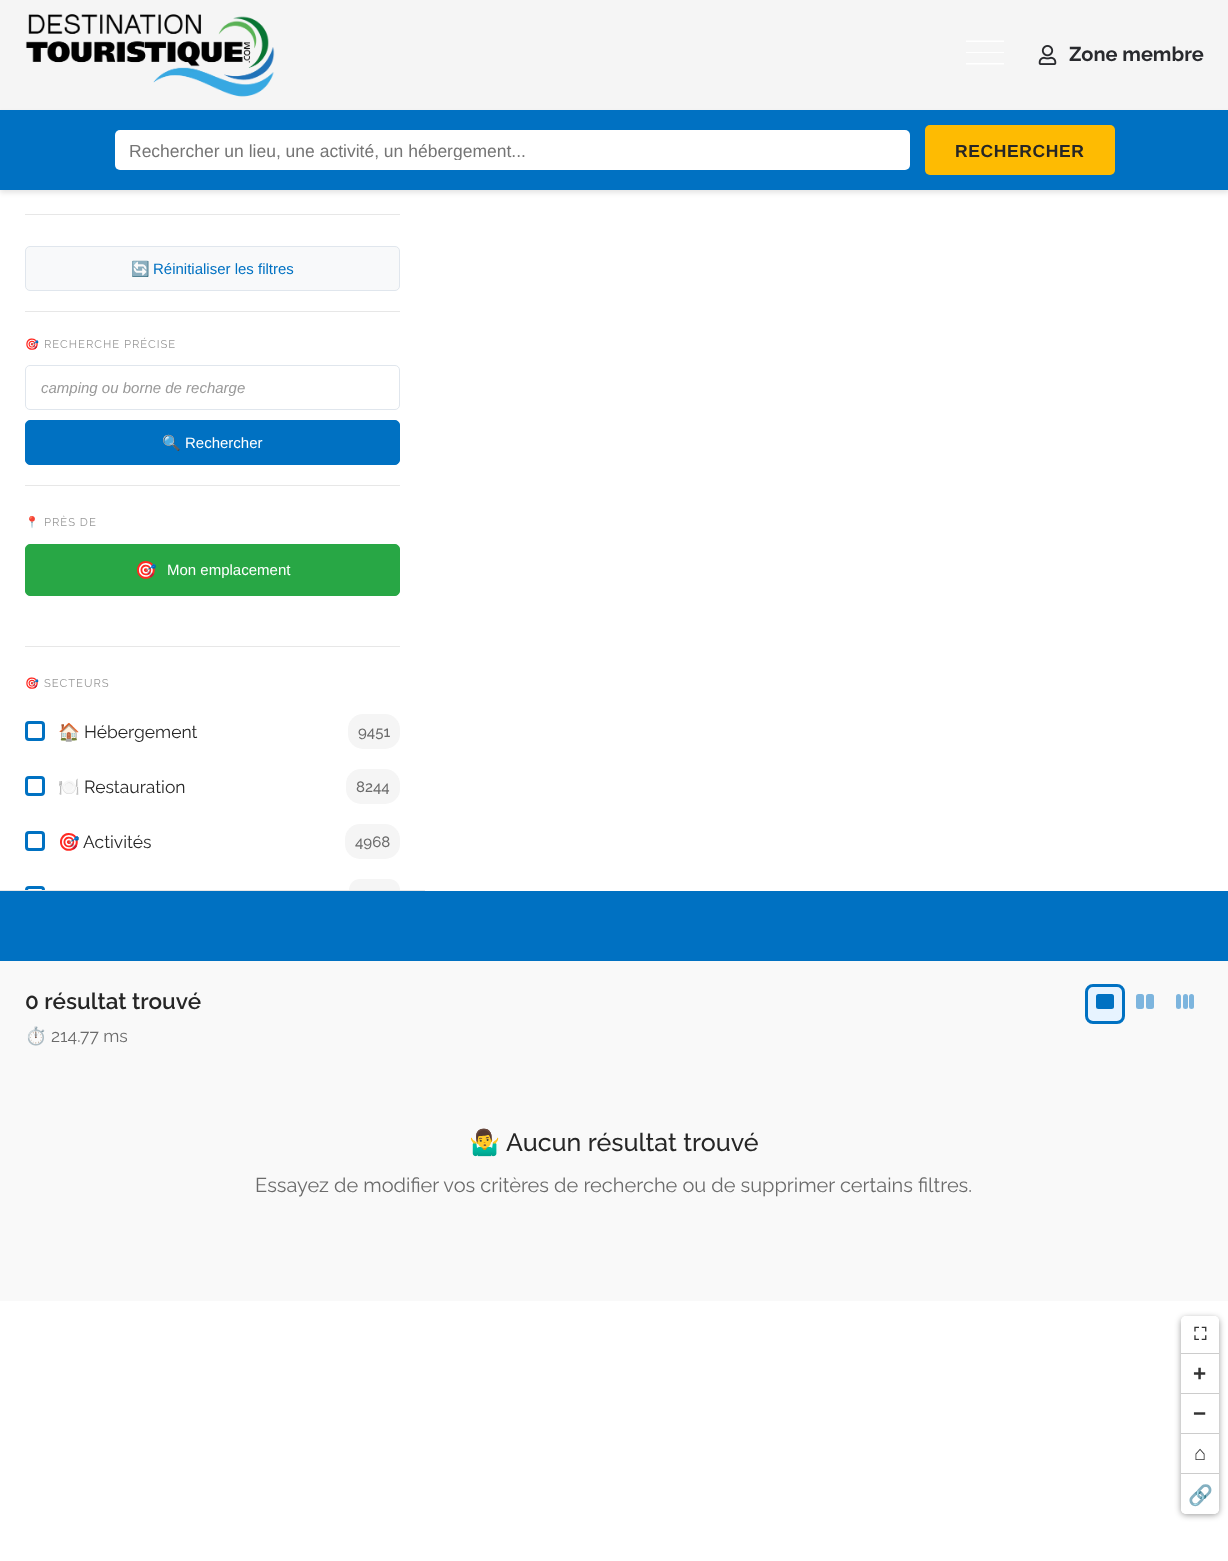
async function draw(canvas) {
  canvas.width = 1228;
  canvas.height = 1561;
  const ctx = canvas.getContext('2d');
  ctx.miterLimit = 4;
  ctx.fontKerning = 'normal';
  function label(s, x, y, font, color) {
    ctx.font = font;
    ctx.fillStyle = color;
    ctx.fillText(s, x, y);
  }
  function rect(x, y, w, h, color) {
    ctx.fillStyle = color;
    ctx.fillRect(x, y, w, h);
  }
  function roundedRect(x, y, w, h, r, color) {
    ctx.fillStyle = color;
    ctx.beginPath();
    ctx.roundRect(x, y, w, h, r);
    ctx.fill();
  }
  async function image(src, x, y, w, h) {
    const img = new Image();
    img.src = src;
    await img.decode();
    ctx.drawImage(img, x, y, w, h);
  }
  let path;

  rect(0, 0, 1228, 1561, '#f5f5f5');
  await image('assets/img1.png', 25, 14, 250, 83);
  ctx.fillStyle = '#fff';
  path = new Path2D('M966 40.5V42H1004V40.5ZM966 52V53H1004V52ZM966 63V64.5H1004V63Z');
  ctx.fill(path);
  await image('assets/img2.png', 1038, 45, 19, 20);
  label('Zone membre', 1069, 61, 'bold 20px Raleway', '#292a2e');
  rect(0, 190, 1228, 1371, '#fff');
  ctx.fillStyle = '#0000001a';
  ctx.filter = 'blur(2.5px)';
  ctx.beginPath();
  ctx.rect(0, 113, 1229, 80);
  ctx.fill();
  ctx.filter = 'none';
  rect(0, 110, 1228, 80, '#0071c2');
  roundedRect(115, 130, 795, 40, 5, '#fff');
  ctx.save();
  ctx.beginPath();
  ctx.rect(130, 140, 765, 20);
  ctx.clip();
  label('Rechercher un lieu, une activité, un hébergement...', 129, 157, '17.5px Liberation Sans', '#757575');
  ctx.restore();
  roundedRect(925, 125, 190, 50, 5, '#febb02');
  ctx.letterSpacing = '0.6px';
  label('RECHERCHER', 955, 157, 'bold 17.5px Liberation Sans', '#262626');
  rect(0, 890, 425, 1, '#e7e7e7');
  rect(25, 214, 375, 1, '#e7e7e7');
  rect(25, 311, 375, 1, '#e7e7e7');
  ctx.fillStyle = '#f8f9fa';
  ctx.beginPath();
  ctx.roundRect(25.5, 246.5, 374, 44, 4.5);
  ctx.fill();
  ctx.strokeStyle = '#e0e6ed';
  ctx.stroke();
  ctx.letterSpacing = '0px';
  label('🔄', 131, 274, '15px Noto Color Emoji', '#0071c2');
  label('Réinitialiser les filtres', 153, 274, '15px Liberation Sans', '#0071c2');
  rect(25, 485, 375, 1, '#e7e7e7');
  ctx.letterSpacing = '1px';
  label('🎯', 25, 348, '11.25px Noto Color Emoji', '#999');
  label('RECHERCHE PRÉCISE', 44, 348, '11.25px Raleway', '#999');
  ctx.beginPath();
  ctx.roundRect(25.5, 365.5, 374, 44, 4.5);
  ctx.stroke();
  ctx.save();
  ctx.beginPath();
  ctx.rect(41, 379, 343, 17);
  ctx.clip();
  ctx.letterSpacing = '0px';
  label('camping ou borne de recharge', 41, 393, 'italic 15px Liberation Sans', '#999');
  ctx.restore();
  ctx.fillStyle = '#0071c2';
  ctx.beginPath();
  ctx.roundRect(25.5, 420.5, 374, 44, 4.5);
  ctx.fill();
  ctx.strokeStyle = '#0071c2';
  ctx.stroke();
  ctx.letterSpacing = '0px';
  label('🔍', 162, 448, '15px Noto Color Emoji', '#fff');
  label('Rechercher', 185, 448, '15px Liberation Sans', '#fff');
  rect(25, 646, 375, 1, '#e7e7e7');
  ctx.letterSpacing = '1px';
  label('📍', 25, 526, '11.25px Noto Color Emoji', '#999');
  label('PRÈS DE', 44, 526, '11.25px Raleway', '#999');
  ctx.fillStyle = '#28a745';
  ctx.beginPath();
  ctx.roundRect(25.5, 544.5, 374, 51, 4.5);
  ctx.fill();
  ctx.strokeStyle = '#28a745';
  ctx.stroke();
  ctx.letterSpacing = '0px';
  label('🎯', 135, 576, '17.5px Noto Color Emoji', '#fff');
  label('Mon emplacement', 167, 575, '15px Liberation Sans', '#fff');
  ctx.letterSpacing = '1px';
  label('🎯', 25, 687, '11.25px Noto Color Emoji', '#999');
  label('SECTEURS', 44, 687, '11.25px Raleway', '#999');
  ctx.beginPath();
  ctx.roundRect(26.5, 722.5, 17, 17, 2.5);
  ctx.strokeStyle = '#0071c2';
  ctx.lineWidth = 3;
  ctx.stroke();
  ctx.letterSpacing = '0px';
  label('🏠', 58, 738, '17.5px Noto Color Emoji', '#262626');
  label('Hébergement', 84, 738, '17.5px Raleway', '#262626');
  roundedRect(348, 714, 52, 35, 15, '#f5f5f5');
  label('9451', 358, 737, '500 15px Raleway', '#6b6b6b');
  ctx.beginPath();
  ctx.roundRect(26.5, 777.5, 17, 17, 2.5);
  ctx.stroke();
  label('🍽️', 58, 793, '17.5px Noto Color Emoji', '#262626');
  label('Restauration', 84, 793, '17.5px Raleway', '#262626');
  roundedRect(346, 769, 54, 35, 15, '#f5f5f5');
  label('8244', 356, 792, '500 15px Raleway', '#6b6b6b');
  ctx.beginPath();
  ctx.roundRect(26.5, 832.5, 17, 17, 2.5);
  ctx.stroke();
  label('🎯', 58, 848, '17.5px Noto Color Emoji', '#262626');
  label('Activités', 83, 848, '17.5px Raleway', '#262626');
  roundedRect(345, 824, 55, 35, 15, '#f5f5f5');
  label('4968', 355, 847, '500 15px Raleway', '#6b6b6b');
  ctx.fillStyle = '#f5f5f5';
  ctx.beginPath();
  ctx.roundRect(349, 879, 51, 11, [15, 15, 0, 0]);
  ctx.fill();
  rect(0, 891, 1228, 70, '#0071c2');
  ctx.save();
  ctx.beginPath();
  ctx.rect(0, 110, 425, 780);
  ctx.clip();
  ctx.beginPath();
  ctx.roundRect(26.5, 887.5, 17, 17, 2.5);
  ctx.stroke();
  ctx.restore();
  rect(0, 961, 1228, 340, '#f9f9f9');
  label('0 résultat trouvé', 25, 1009, '600 22.5px Raleway', '#262626');
  label('⏱️', 25, 1042, '17.5px Noto Color Emoji', '#6b6b6b');
  label('214.77 ms', 51, 1042, '17.5px Raleway', '#6b6b6b');
  ctx.fillStyle = '#e7f3ff';
  ctx.beginPath();
  ctx.roundRect(1086.5, 985.5, 37, 37, 6.5);
  ctx.fill();
  ctx.stroke();
  roundedRect(1096, 994, 18, 15, 2.5, '#0071c2');
  roundedRect(1136, 994, 8, 15, 2.5, '#7db5de');
  roundedRect(1146, 994, 8, 15, 2.5, '#7db5de');
  roundedRect(1176, 994, 5, 15, 2.5, '#7db5de');
  roundedRect(1183, 994, 5, 15, 2.5, '#7db5de');
  roundedRect(1189, 994, 5, 15, 2.5, '#7db5de');
  label('🤷‍♂️', 469, 1151, '25px Noto Color Emoji', '#262626');
  label('Aucun résultat trouvé', 506, 1151, '500 25px Raleway', '#262626');
  label('Essayez de modifier vos critères de recherche ou de supprimer certains filtres.', 255, 1192, '20px Raleway', '#6b6b6b');
  ctx.fillStyle = '#00000066';
  ctx.filter = 'blur(3px)';
  ctx.beginPath();
  ctx.roundRect(1181, 1318, 38, 197, 5);
  ctx.fill();
  ctx.filter = 'none';
  roundedRect(1181, 1316, 38, 198, 5, '#fff');
  ctx.beginPath();
  ctx.roundRect(1181, 1316, 38, 38, [5, 5, 0, 0]);
  ctx.fill();
  rect(1181, 1353, 38, 1, '#ccc');
  label('⛶', 1194, 1340, 'bold 17.5px FreeSans', '#333');
  rect(1181, 1393, 38, 1, '#ccc');
  label('+', 1193, 1381, 'bold 22.5px Liberation Sans', '#333');
  rect(1181, 1433, 38, 1, '#ccc');
  label('−', 1193, 1421, 'bold 22.5px Liberation Sans', '#333');
  rect(1181, 1473, 38, 1, '#ccc');
  label('⌂', 1194, 1460, 'bold 20px Liberation Sans', '#333');
  ctx.fillStyle = '#fff';
  ctx.beginPath();
  ctx.roundRect(1181, 1476, 38, 38, [0, 0, 5, 5]);
  ctx.fill();
  label('🔗', 1188, 1502, 'bold 20px Noto Color Emoji', '#333');
}

draw(document.querySelector('canvas'));
